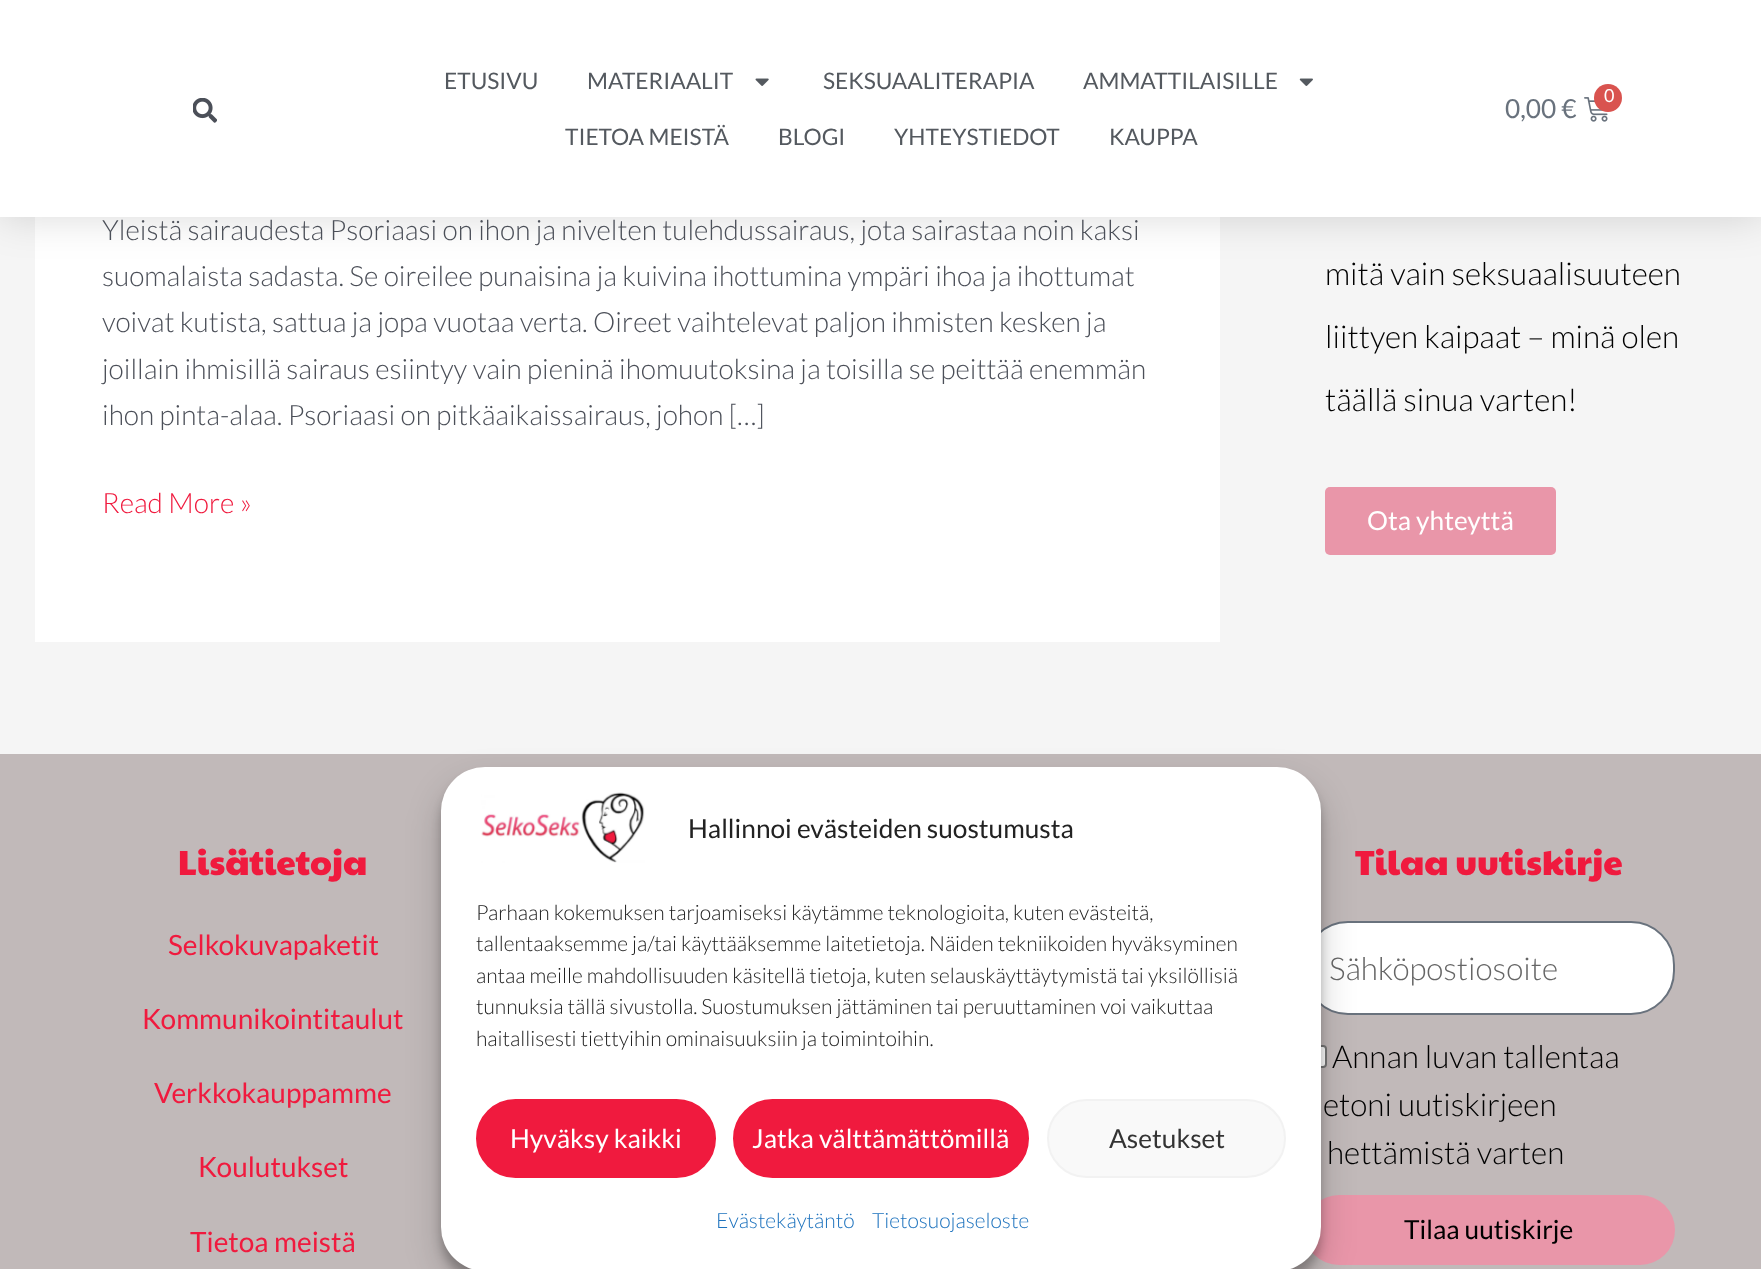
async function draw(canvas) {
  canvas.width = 1761;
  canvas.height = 1269;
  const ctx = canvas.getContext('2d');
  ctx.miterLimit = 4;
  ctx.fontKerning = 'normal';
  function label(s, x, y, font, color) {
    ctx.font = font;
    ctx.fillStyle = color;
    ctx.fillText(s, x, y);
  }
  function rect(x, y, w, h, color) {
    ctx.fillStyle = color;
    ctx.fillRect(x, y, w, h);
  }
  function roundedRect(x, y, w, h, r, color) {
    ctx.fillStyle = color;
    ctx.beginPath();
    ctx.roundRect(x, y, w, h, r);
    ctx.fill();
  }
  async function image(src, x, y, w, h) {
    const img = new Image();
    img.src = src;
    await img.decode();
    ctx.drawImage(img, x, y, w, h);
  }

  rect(0, 0, 1761, 1269, '#f5f5f5');
  rect(35, 217, 1185, 425, '#fff');
  ctx.fillStyle = '#00000026';
  ctx.filter = 'blur(21px)';
  ctx.beginPath();
  ctx.rect(0, 0, 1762, 217);
  ctx.fill();
  ctx.filter = 'none';
  rect(0, 0, 1761, 217, '#fff');
  await image('assets/img1.png', 193, 98, 24, 25);
  label('ETUSIVU', 444, 89, '22.75px Lato', '#54595f');
  label('MATERIAALIT', 587, 89, '22.75px Lato', '#54595f');
  await image('assets/img2.png', 755, 78, 14, 8);
  label('SEKSUAALITERAPIA', 823, 89, '22.75px Lato', '#54595f');
  label('AMMATTILAISILLE', 1083, 89, '22.75px Lato', '#54595f');
  await image('assets/img3.png', 1299, 78, 14, 8);
  label('TIETOA MEISTÄ', 565, 145, '22.75px Lato', '#54595f');
  label('BLOGI', 778, 145, '22.75px Lato', '#54595f');
  label('YHTEYSTIEDOT', 894, 145, '22.75px Lato', '#54595f');
  label('KAUPPA', 1109, 145, '22.75px Lato', '#54595f');
  await image('assets/img4.png', 1584, 97, 24, 25);
  ctx.fillStyle = '#d9534f';
  ctx.beginPath();
  ctx.arc(1608, 98, 14, 0, 2 * Math.PI);
  ctx.fill();
  label('0', 1604, 102, '18px Lato', '#fff');
  label('0,00 €', 1505, 118, '26.25px Lato', '#69727d');
  label('Yleistä sairaudesta Psoriaasi on ihon ja nivelten tulehdussairaus, jota sairastaa noin kaksi', 102, 240, '300 28px Lato', '#4b4f58');
  label('suomalaista sadasta. Se oireilee punaisina ja kuivina ihottumina ympäri ihoa ja ihottumat', 102, 286, '300 28px Lato', '#4b4f58');
  label('voivat kutista, sattua ja jopa vuotaa verta. Oireet vaihtelevat paljon ihmisten kesken ja', 102, 332, '300 28px Lato', '#4b4f58');
  label('joillain ihmisillä sairaus esiintyy vain pieninä ihomuutoksina ja toisilla se peittää enemmän', 102, 379, '300 28px Lato', '#4b4f58');
  label('ihon pinta-alaa. Psoriaasi on pitkäaikaissairaus, johon […]', 102, 425, '300 28px Lato', '#4b4f58');
  label('Read More »', 102, 513, '300 28px Lato', '#f01a3e');
  label('mitä vain seksuaalisuuteen', 1325, 285, '300 31.5px Lato', '#000');
  label('liittyen kaipaat – minä olen', 1325, 348, '300 31.5px Lato', '#000');
  label('täällä sinua varten!', 1325, 411, '300 31.5px Lato', '#000');
  roundedRect(1325, 487, 231, 68, 5, '#e996a9');
  label('Ota yhteyttä', 1367, 530, '26.25px Lato', '#fff');
  rect(0, 754, 1761, 515, '#c1b9b9');
  label('Lisätietoja', 178, 875, '35px Paytone One', '#f01a3e');
  label('Selkokuvapaketit', 168, 955, '28px Lato', '#f01a3e');
  label('Kommunikointitaulut', 142, 1029, '28px Lato', '#f01a3e');
  label('Verkkokauppamme', 154, 1103, '28px Lato', '#f01a3e');
  label('Koulutukset', 198, 1177, '28px Lato', '#f01a3e');
  label('Tietoa meistä', 190, 1252, '28px Lato', '#f01a3e');
  label('Tilaa uutiskirje', 1355, 875, '35px Paytone One', '#f01a3e');
  ctx.fillStyle = '#fff';
  ctx.beginPath();
  ctx.roundRect(1305, 922, 369, 92, 43);
  ctx.fill();
  ctx.strokeStyle = '#69727d';
  ctx.lineWidth = 2;
  ctx.stroke();
  label('Sähköpostiosoite', 1329, 980, '300 31.5px Lato', '#666');
  ctx.fillStyle = '#fff';
  ctx.beginPath();
  ctx.roundRect(1305, 1046, 21, 21, 3);
  ctx.fill();
  ctx.strokeStyle = '#767676';
  ctx.stroke();
  label('Annan luvan tallentaa', 1332, 1068, '300 31.5px Lato', '#000');
  label('etoni uutiskirjeen', 1323, 1116, '300 31.5px Lato', '#000');
  label('hettämistä varten', 1327, 1164, '300 31.5px Lato', '#000');
  roundedRect(1304, 1195, 371, 70, 35, '#e996a9');
  label('Tilaa uutiskirje', 1404, 1239, '26.25px Lato', '#000');
  ctx.fillStyle = '#0000003b';
  ctx.filter = 'blur(5px)';
  ctx.beginPath();
  ctx.roundRect(441, 777, 880, 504, 44);
  ctx.fill();
  ctx.filter = 'none';
  ctx.fillStyle = '#00000030';
  ctx.filter = 'blur(17.5px)';
  ctx.beginPath();
  ctx.roundRect(441, 784, 880, 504, 44);
  ctx.fill();
  ctx.filter = 'none';
  roundedRect(441, 767, 880, 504, 44, '#fff');
  await image('assets/img5.png', 481, 792, 164, 71);
  label('Hallinnoi evästeiden suostumusta', 688, 838, '26.25px Lato', '#222');
  label('Parhaan kokemuksen tarjoamiseksi käytämme teknologioita, kuten evästeitä,', 476, 920, '300 21px Lato', '#222');
  label('tallentaaksemme ja/tai käyttääksemme laitetietoja. Näiden tekniikoiden hyväksyminen', 476, 951, '300 21px Lato', '#222');
  label('antaa meille mahdollisuuden käsitellä tietoja, kuten selauskäyttäytymistä tai yksilöllisiä', 476, 983, '300 21px Lato', '#222');
  label('tunnuksia tällä sivustolla. Suostumuksen jättäminen tai peruuttaminen voi vaikuttaa', 476, 1014, '300 21px Lato', '#222');
  label('haitallisesti tiettyihin ominaisuuksiin ja toimintoihin.', 476, 1046, '300 21px Lato', '#222');
  ctx.fillStyle = '#f01a3e';
  ctx.beginPath();
  ctx.roundRect(477, 1100, 238, 77, 38.5);
  ctx.fill();
  ctx.strokeStyle = '#f01a3e';
  ctx.stroke();
  label('Hyväksy kaikki', 510, 1148, '26.25px Lato', '#fff');
  ctx.fillStyle = '#f01a3e';
  ctx.beginPath();
  ctx.roundRect(734, 1100, 294, 77, 38.5);
  ctx.fill();
  ctx.stroke();
  label('Jatka välttämättömillä', 752, 1148, '26.25px Lato', '#fff');
  ctx.fillStyle = '#f9f9f9';
  ctx.beginPath();
  ctx.roundRect(1048, 1100, 237, 77, 38.5);
  ctx.fill();
  ctx.strokeStyle = '#f2f2f2';
  ctx.stroke();
  label('Asetukset', 1109, 1148, '26.25px Lato', '#333');
  label('Evästekäytäntö', 716, 1228, '300 21px Lato', '#1e73be');
  label('Tietosuojaseloste', 872, 1228, '300 21px Lato', '#1e73be');
}

draw(document.querySelector('canvas'));
